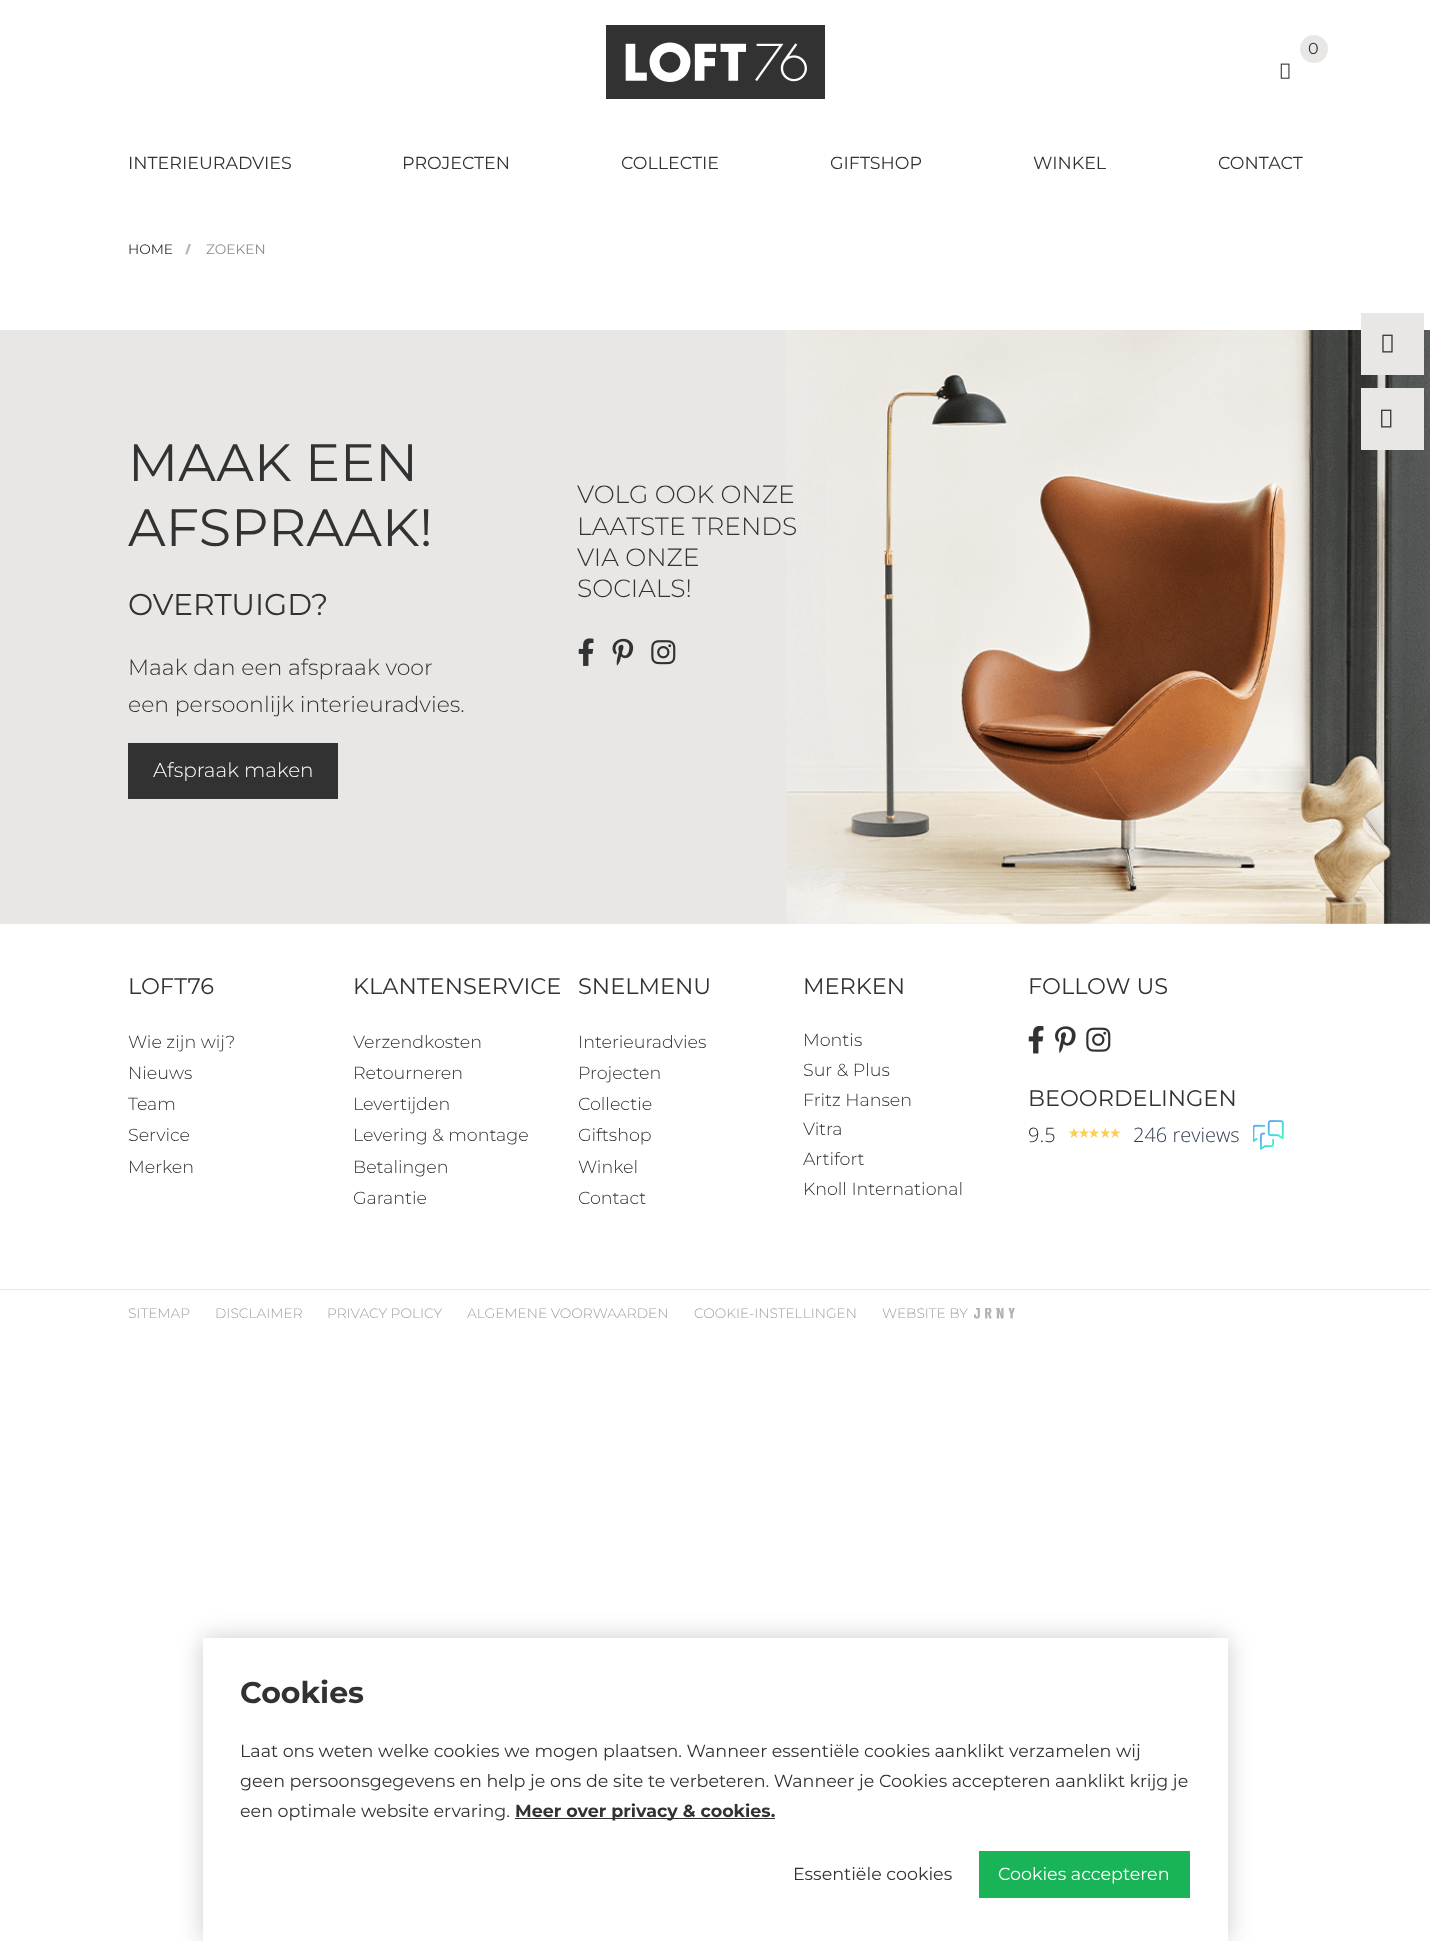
async function draw(canvas) {
  canvas.width = 1430;
  canvas.height = 1941;
  const ctx = canvas.getContext('2d');
  ctx.miterLimit = 4;
  ctx.fontKerning = 'normal';
  function label(s, x, y, font, color) {
    ctx.font = font;
    ctx.fillStyle = color;
    ctx.fillText(s, x, y);
  }
  function rect(x, y, w, h, color) {
    ctx.fillStyle = color;
    ctx.fillRect(x, y, w, h);
  }
  async function image(src, x, y, w, h) {
    const img = new Image();
    img.src = src;
    await img.decode();
    ctx.drawImage(img, x, y, w, h);
  }
  let path;

  rect(0, 0, 1430, 1941, '#fff');
  await image('assets/img1.png', 606, 25, 219, 74);
  ctx.fillStyle = '#e8e7e5';
  ctx.beginPath();
  ctx.arc(1314, 49, 14, 0, 2 * Math.PI);
  ctx.fill();
  label('0', 1308, 54, '16px Montserrat', '#323232');
  await image('assets/img2.png', 1280, 63, 10, 16);
  label('INTERIEURADVIES', 128, 169, '17.5px Montserrat', '#323232');
  label('PROJECTEN', 402, 169, '17.5px Montserrat', '#323232');
  label('COLLECTIE', 621, 169, '17.5px Montserrat', '#323232');
  label('GIFTSHOP', 830, 169, '17.5px Montserrat', '#323232');
  label('WINKEL', 1033, 169, '17.5px Montserrat', '#323232');
  label('CONTACT', 1218, 169, '17.5px Montserrat', '#323232');
  rect(0, 330, 1430, 594, '#e8e7e5');
  await image('assets/img8.png', 786, 330, 644, 594);
  rect(1361, 313, 63, 62, '#e8e7e5');
  await image('assets/img3.png', 1382, 334, 11, 19);
  rect(1361, 388, 63, 62, '#e8e7e5');
  await image('assets/img4.png', 1381, 409, 11, 19);
  label('HOME', 128, 254, '13.75px Montserrat', '#323232');
  label('/', 185, 254, '900 13.75px Noto Sans', '#b8b8b8');
  label('ZOEKEN', 206, 254, '13.75px Montserrat', '#8b8b8b');
  label('MAAK EEN', 128, 481, '52.5px Montserrat', '#323232');
  label('AFSPRAAK!', 128, 546, '52.5px Montserrat', '#323232');
  label('OVERTUIGD?', 128, 615, '30px Montserrat', '#323232');
  label('Maak dan een afspraak voor', 128, 675, '300 22px Montserrat', '#323232');
  label('een persoonlijk interieuradvies.', 128, 712, '300 22px Montserrat', '#323232');
  rect(128, 743, 210, 56, '#323232');
  label('Afspraak maken', 153, 777, '300 20px Montserrat', '#fff');
  label('VOLG OOK ONZE', 577, 503, '300 25px Montserrat', '#323232');
  label('LAATSTE TRENDS', 577, 535, '300 25px Montserrat', '#323232');
  label('VIA ONZE', 577, 566, '300 25px Montserrat', '#323232');
  label('SOCIALS!', 577, 597, '300 25px Montserrat', '#323232');
  await image('assets/img5.png', 578, 638, 16, 28);
  await image('assets/img6.png', 612, 638, 22, 28);
  await image('assets/img7.png', 651, 640, 25, 25);
  label('LOFT76', 128, 994, '22.5px Montserrat', '#323232');
  label('Wie zijn wij?', 128, 1048, '300 17.5px Montserrat', '#323232');
  label('Nieuws', 128, 1079, '300 17.5px Montserrat', '#323232');
  label('Team', 128, 1110, '300 17.5px Montserrat', '#323232');
  label('Service', 128, 1141, '300 17.5px Montserrat', '#323232');
  label('Merken', 128, 1173, '300 17.5px Montserrat', '#323232');
  label('KLANTENSERVICE', 353, 994, '22.5px Montserrat', '#323232');
  label('Verzendkosten', 353, 1048, '300 17.5px Montserrat', '#323232');
  label('Retourneren', 353, 1079, '300 17.5px Montserrat', '#323232');
  label('Levertijden', 353, 1110, '300 17.5px Montserrat', '#323232');
  label('Levering & montage', 353, 1141, '300 17.5px Montserrat', '#323232');
  label('Betalingen', 353, 1173, '300 17.5px Montserrat', '#323232');
  label('Garantie', 353, 1204, '300 17.5px Montserrat', '#323232');
  label('SNELMENU', 578, 994, '22.5px Montserrat', '#323232');
  label('Interieuradvies', 578, 1048, '300 17.5px Montserrat', '#323232');
  label('Projecten', 578, 1079, '300 17.5px Montserrat', '#323232');
  label('Collectie', 578, 1110, '300 17.5px Montserrat', '#323232');
  label('Giftshop', 578, 1141, '300 17.5px Montserrat', '#323232');
  label('Winkel', 578, 1173, '300 17.5px Montserrat', '#323232');
  label('Contact', 578, 1204, '300 17.5px Montserrat', '#323232');
  label('MERKEN', 803, 994, '22.5px Montserrat', '#323232');
  label('Montis', 803, 1046, '300 17.5px Montserrat', '#323232');
  label('Sur & Plus', 803, 1076, '300 17.5px Montserrat', '#323232');
  label('Fritz Hansen', 803, 1106, '300 17.5px Montserrat', '#323232');
  label('Vitra', 803, 1135, '300 17.5px Montserrat', '#323232');
  label('Artifort', 803, 1165, '300 17.5px Montserrat', '#323232');
  label('Knoll International', 803, 1195, '300 17.5px Montserrat', '#323232');
  label('FOLLOW US', 1028, 994, '22.5px Montserrat', '#323232');
  await image('assets/img9.png', 1028, 1025, 16, 29);
  await image('assets/img10.png', 1055, 1026, 21, 27);
  await image('assets/img11.png', 1086, 1027, 25, 25);
  label('BEOORDELINGEN', 1028, 1106, '22.5px Montserrat', '#323232');
  label('9.5', 1028, 1142, '300 20px Open Sans', '#323232');
  await image('assets/img12.png', 1069, 1128, 10, 10);
  await image('assets/img12.png', 1079, 1128, 10, 10);
  await image('assets/img12.png', 1089, 1128, 10, 10);
  await image('assets/img13.png', 1100, 1128, 10, 10);
  await image('assets/img14.png', 1110, 1128, 11, 10);
  label('246 reviews', 1133, 1142, '300 20px Open Sans', '#303c50');
  await image('assets/img15.png', 1253, 1120, 31, 30);
  rect(0, 1289, 1430, 1, '#e8e7e5');
  label('SITEMAP', 128, 1318, '300 13.75px Montserrat', '#9e9e9e');
  label('DISCLAIMER', 215, 1318, '300 13.75px Montserrat', '#9e9e9e');
  label('PRIVACY POLICY', 327, 1318, '300 13.75px Montserrat', '#9e9e9e');
  label('ALGEMENE VOORWAARDEN', 467, 1318, '300 13.75px Montserrat', '#9e9e9e');
  label('COOKIE-INSTELLINGEN', 694, 1318, '300 13.75px Montserrat', '#9e9e9e');
  label('WEBSITE BY', 882, 1318, '300 13.75px Montserrat', '#9e9e9e');
  await image('assets/img16.png', 974, 1308, 41, 11);
  ctx.save();
  path = new Path2D('M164 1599H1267V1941H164ZM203 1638H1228V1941H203Z');
  ctx.clip(path, 'evenodd');
  ctx.fillStyle = '#00000033';
  ctx.filter = 'blur(12.5px)';
  ctx.beginPath();
  ctx.rect(203, 1638, 1025, 303);
  ctx.fill();
  ctx.filter = 'none';
  ctx.restore();
  rect(1227, 1638, 1, 303, '#ffffffe6');
  label('Cookies', 240, 1703, 'bold 30px Montserrat', '#323232');
  label('Laat ons weten welke cookies we mogen plaatsen. Wanneer essentiële cookies aanklikt verzamelen wij', 240, 1757, '17.5px Montserrat', '#323232');
  label('geen persoonsgegevens en help je ons de site te verbeteren. Wanneer je Cookies accepteren aanklikt krijg je', 240, 1787, '17.5px Montserrat', '#323232');
  label('een optimale website ervaring.', 240, 1817, '17.5px Montserrat', '#323232');
  rect(515, 1818, 260, 1, '#323232');
  label('Meer over privacy & cookies.', 515, 1817, 'bold 17.5px Montserrat', '#323232');
  label('Essentiële cookies', 793, 1880, '17.5px Montserrat', '#323232');
  rect(979, 1851, 211, 47, '#19b358');
  label('Cookies accepteren', 998, 1880, '17.5px Montserrat', '#fff');
}

draw(document.querySelector('canvas'));
